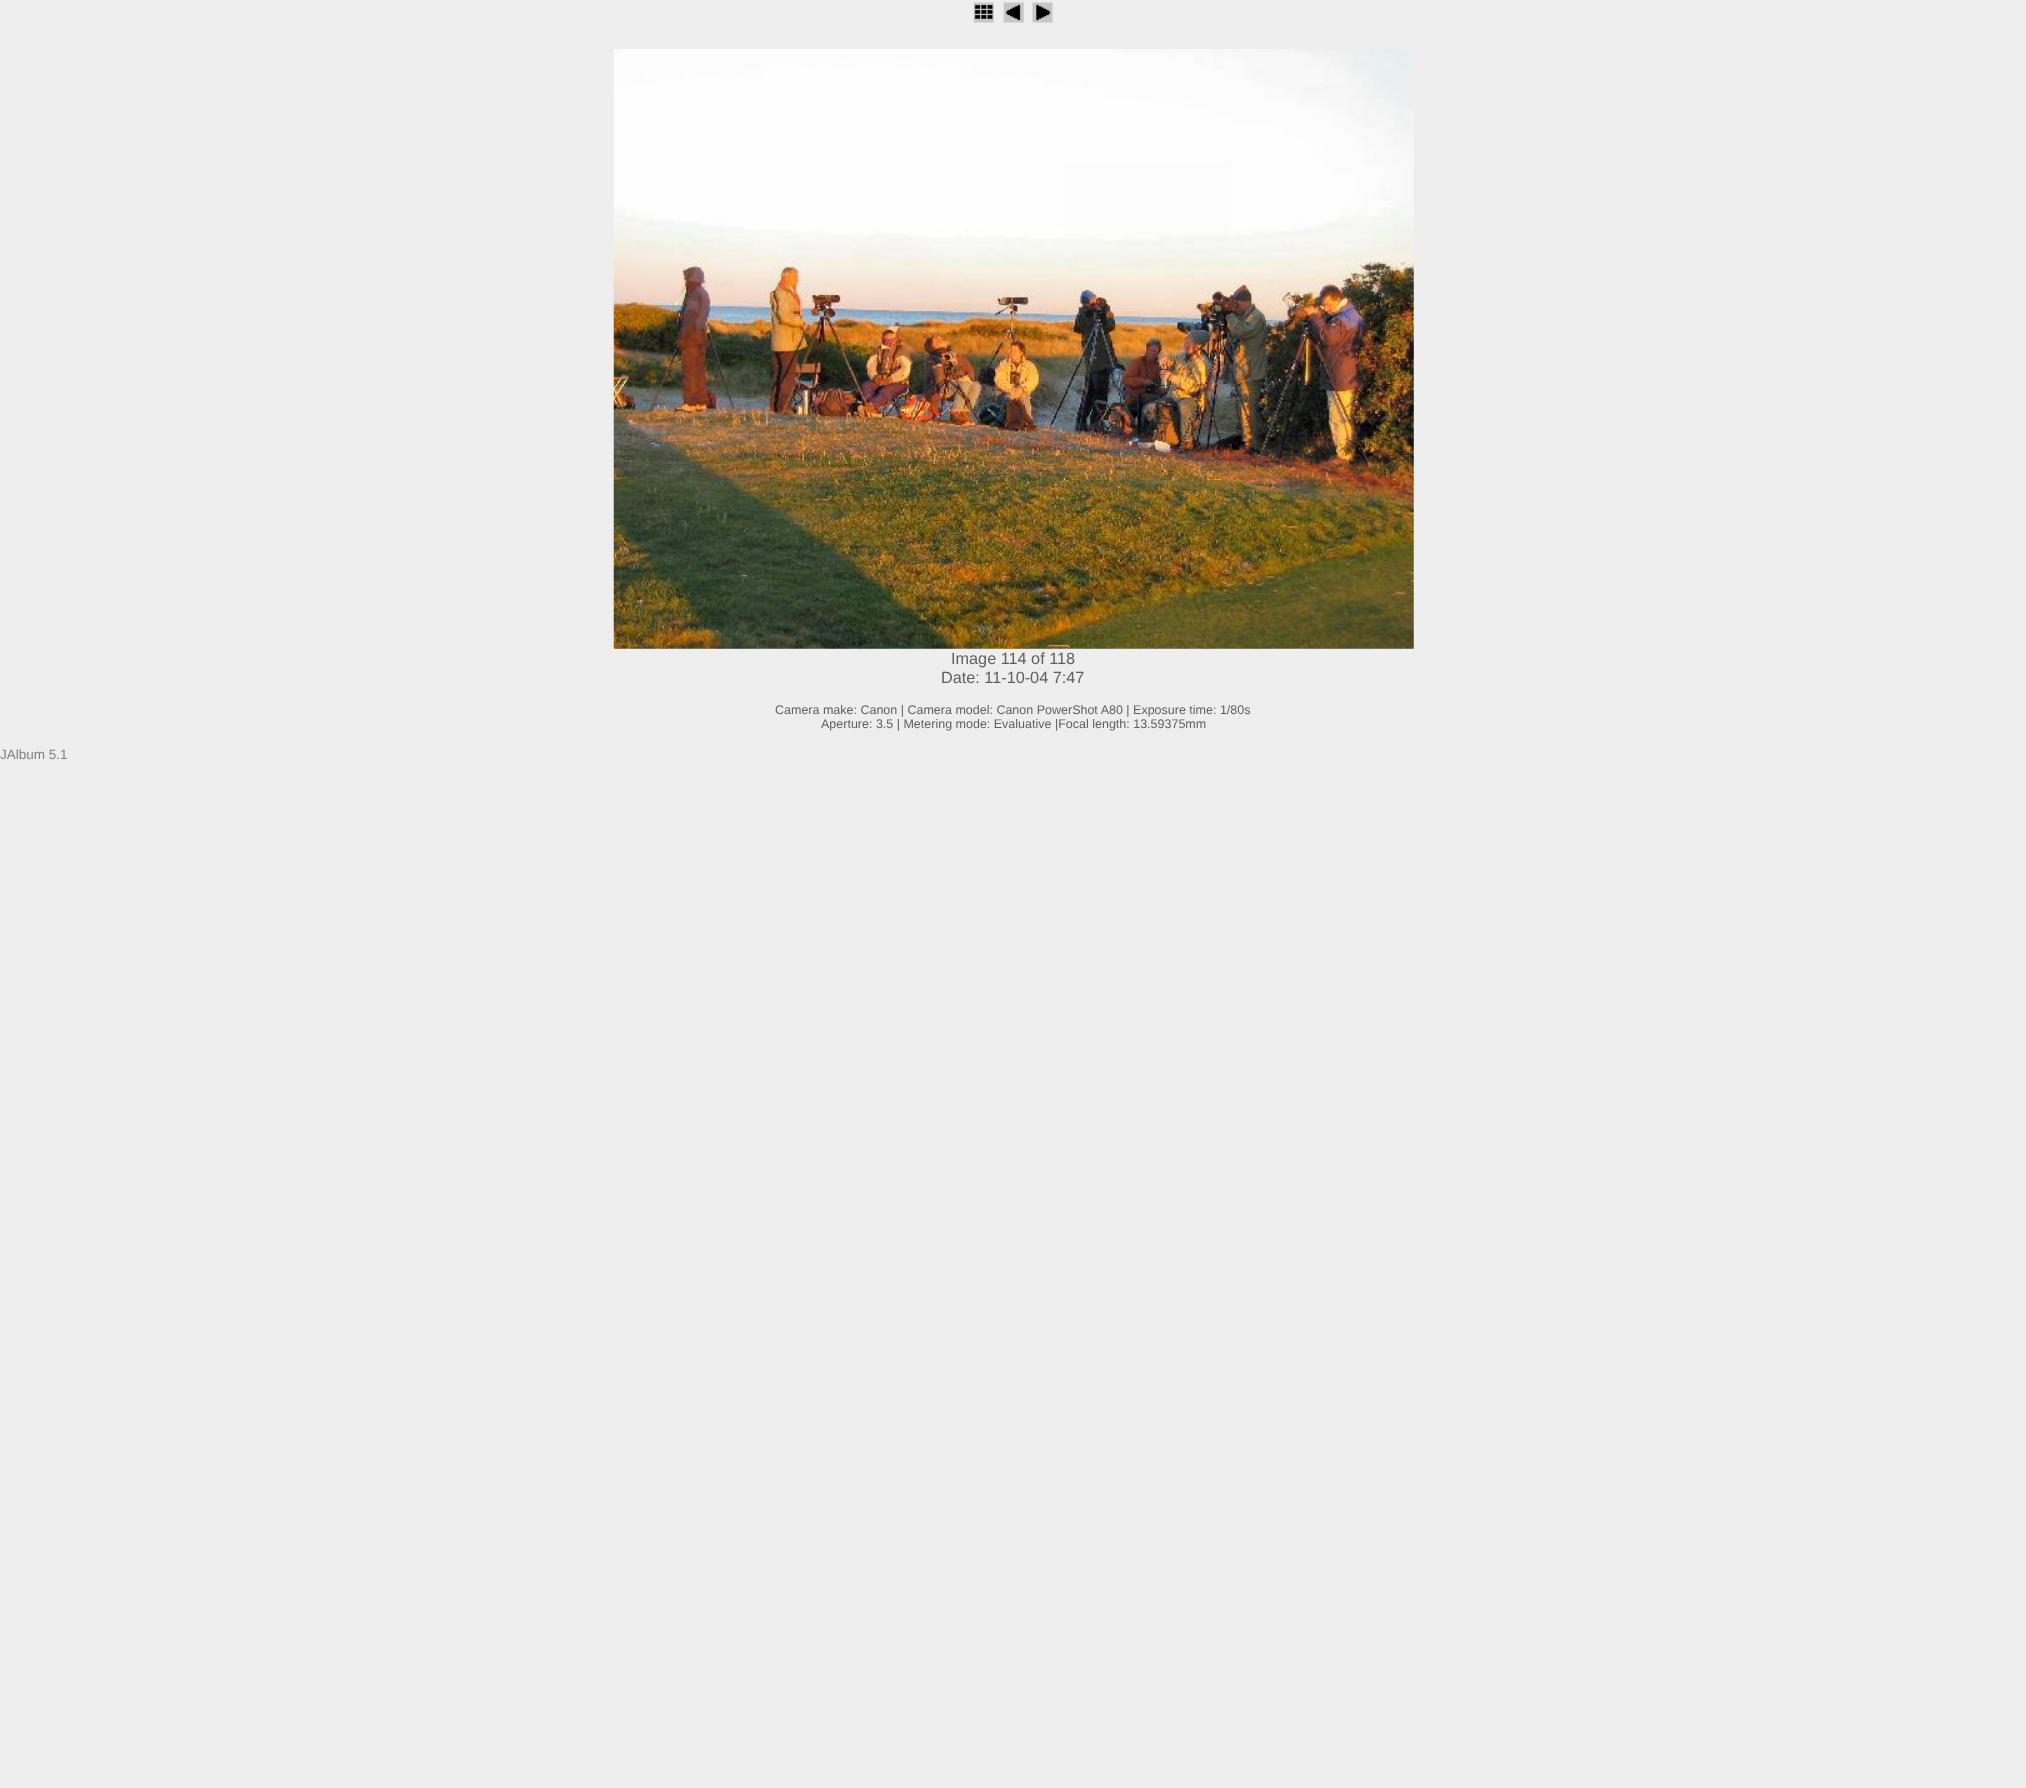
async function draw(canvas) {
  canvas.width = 2026;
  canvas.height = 1788;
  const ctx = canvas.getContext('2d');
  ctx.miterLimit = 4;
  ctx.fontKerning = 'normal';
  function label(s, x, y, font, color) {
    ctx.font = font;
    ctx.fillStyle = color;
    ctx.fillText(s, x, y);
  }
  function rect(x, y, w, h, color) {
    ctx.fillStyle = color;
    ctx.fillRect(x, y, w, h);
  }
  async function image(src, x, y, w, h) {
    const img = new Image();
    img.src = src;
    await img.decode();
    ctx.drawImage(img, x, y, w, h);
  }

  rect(0, 0, 2026, 1788, '#eee');
  await image('assets/img1.png', 973, 2, 21, 21);
  await image('assets/img2.png', 1003, 2, 21, 21);
  await image('assets/img3.png', 1032, 2, 21, 21);
  await image('assets/img4.png', 613, 49, 801, 600);
  label('Image 114 of 118', 951, 664, '16.25px Liberation Sans', '#5f5f5f');
  label('Date: 11-10-04 7:47', 941, 683, '16.25px Liberation Sans', '#5f5f5f');
  label('Camera make: Canon | Camera model: Canon PowerShot A80 | Exposure time: 1/80s', 775, 714, '12.5px Liberation Sans', '#5f5f5f');
  label('Aperture: 3.5 | Metering mode: Evaluative |Focal length: 13.59375mm', 821, 728, '12.5px Liberation Sans', '#5f5f5f');
  label('JAlbum 5.1', 0, 759, '13.5px Liberation Sans', '#808080');
}

draw(document.querySelector('canvas'));
